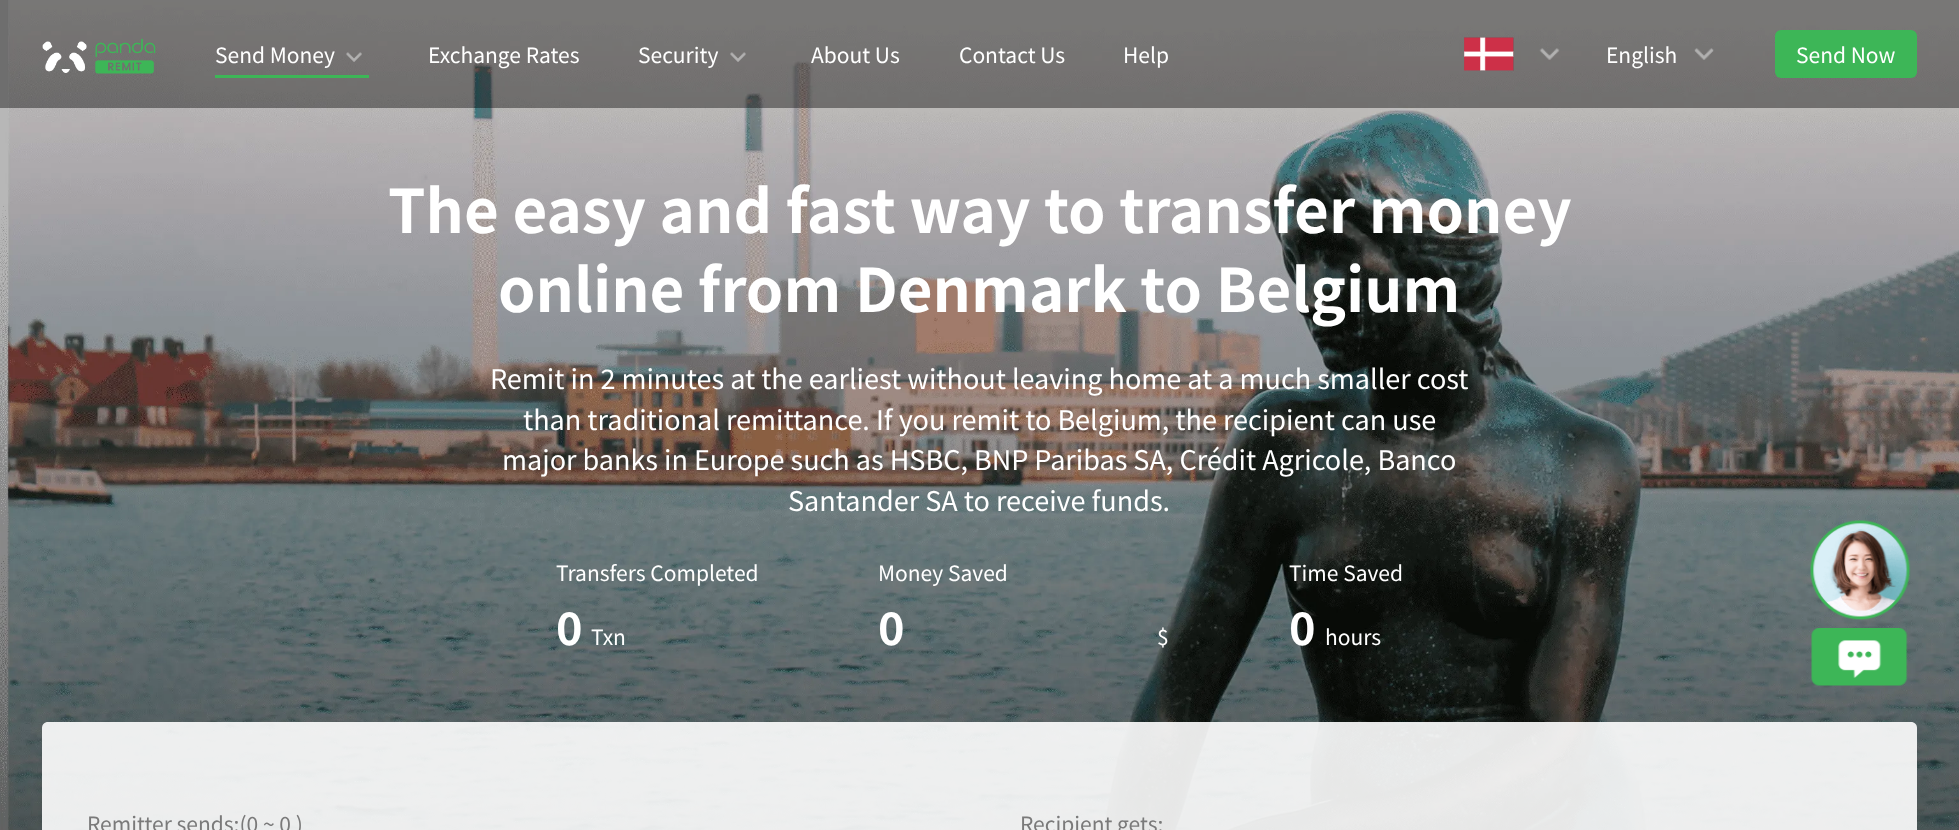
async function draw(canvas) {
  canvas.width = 1959;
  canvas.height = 830;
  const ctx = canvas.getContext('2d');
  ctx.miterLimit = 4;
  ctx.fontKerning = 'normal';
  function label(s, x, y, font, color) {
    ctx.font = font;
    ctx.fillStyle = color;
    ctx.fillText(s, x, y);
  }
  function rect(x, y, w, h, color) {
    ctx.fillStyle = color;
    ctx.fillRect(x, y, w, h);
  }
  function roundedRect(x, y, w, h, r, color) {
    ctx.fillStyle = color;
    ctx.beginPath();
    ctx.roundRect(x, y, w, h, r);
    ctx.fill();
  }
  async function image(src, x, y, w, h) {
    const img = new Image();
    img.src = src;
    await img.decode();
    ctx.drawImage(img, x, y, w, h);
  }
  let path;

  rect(0, 0, 1959, 830, '#fdfdfd');
  await image('assets/img1.png', 0, 0, 1959, 830);
  rect(0, 0, 1959, 108, '#00000066');
  await image('assets/img2.png', 42, 38, 114, 36);
  label('Send Money', 215, 63, '21px Noto Sans CJK SC', '#fff');
  await image('assets/img3.png', 346, 52, 16, 10);
  rect(215, 75, 154, 3, '#3db657');
  label('Exchange Rates', 428, 63, '21px Noto Sans CJK SC', '#fff');
  label('Security', 638, 63, '21px Noto Sans CJK SC', '#fff');
  await image('assets/img4.png', 730, 52, 16, 10);
  label('About Us', 811, 63, '21px Noto Sans CJK SC', '#fff');
  label('Contact Us', 959, 63, '21px Noto Sans CJK SC', '#fff');
  label('Help', 1123, 63, '21px Noto Sans CJK SC', '#fff');
  await image('assets/img5.png', 1464, 37, 50, 34);
  await image('assets/img6.png', 1539, 48, 21, 12);
  label('English', 1606, 63, '21px Noto Sans CJK SC', '#fff');
  await image('assets/img7.png', 1694, 48, 20, 12);
  roundedRect(1775, 30, 142, 48, 6, '#3db657');
  label('Send Now', 1796, 63, '21px Noto Sans CJK SC', '#fff');
  label('The easy and fast way to transfer money', 388, 233, 'bold 60px Noto Sans CJK SC', '#fff');
  label('online from Denmark to Belgium', 498, 312, 'bold 60px Noto Sans CJK SC', '#fff');
  label('Remit in 2 minutes at the earliest without leaving home at a much smaller cost', 490, 389, '27px Noto Sans CJK SC', '#fff');
  label('than traditional remittance. If you remit to Belgium, the recipient can use', 523, 430, '27px Noto Sans CJK SC', '#fff');
  label('major banks in Europe such as HSBC, BNP Paribas SA, Crédit Agricole, Banco', 502, 470, '27px Noto Sans CJK SC', '#fff');
  label('Santander SA to receive funds.', 788, 511, '27px Noto Sans CJK SC', '#fff');
  label('Transfers Completed', 556, 581, '21px Noto Sans CJK SC', '#fff');
  label('0', 556, 645, 'bold 45px Noto Sans CJK SC', '#fff');
  label('Txn', 591, 645, '21px Noto Sans CJK SC', '#fff');
  label('Money Saved', 878, 581, '21px Noto Sans CJK SC', '#fff');
  label('0', 878, 645, 'bold 45px Noto Sans CJK SC', '#fff');
  label('$', 1157, 645, '21px Noto Sans CJK SC', '#fff');
  label('Time Saved', 1289, 581, '21px Noto Sans CJK SC', '#fff');
  label('0', 1289, 645, 'bold 45px Noto Sans CJK SC', '#fff');
  label('hours', 1325, 645, '21px Noto Sans CJK SC', '#fff');
  ctx.fillStyle = '#ffffffe6';
  path = new Path2D('M48 722H1911C1914.5 722 1917 724.5 1917 728V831H42V728C42 724.5 44.5 722 48 722Z');
  ctx.fill(path);
  label('Remitter sends:(0 ~ 0 )', 87, 832, '21px Noto Sans CJK SC', '#7a7a7a');
  label('Recipient gets:', 1020, 832, '21px Noto Sans CJK SC', '#7a7a7a');
  await image('assets/img8.png', 1810, 520, 101, 166);
}

draw(document.querySelector('canvas'));
